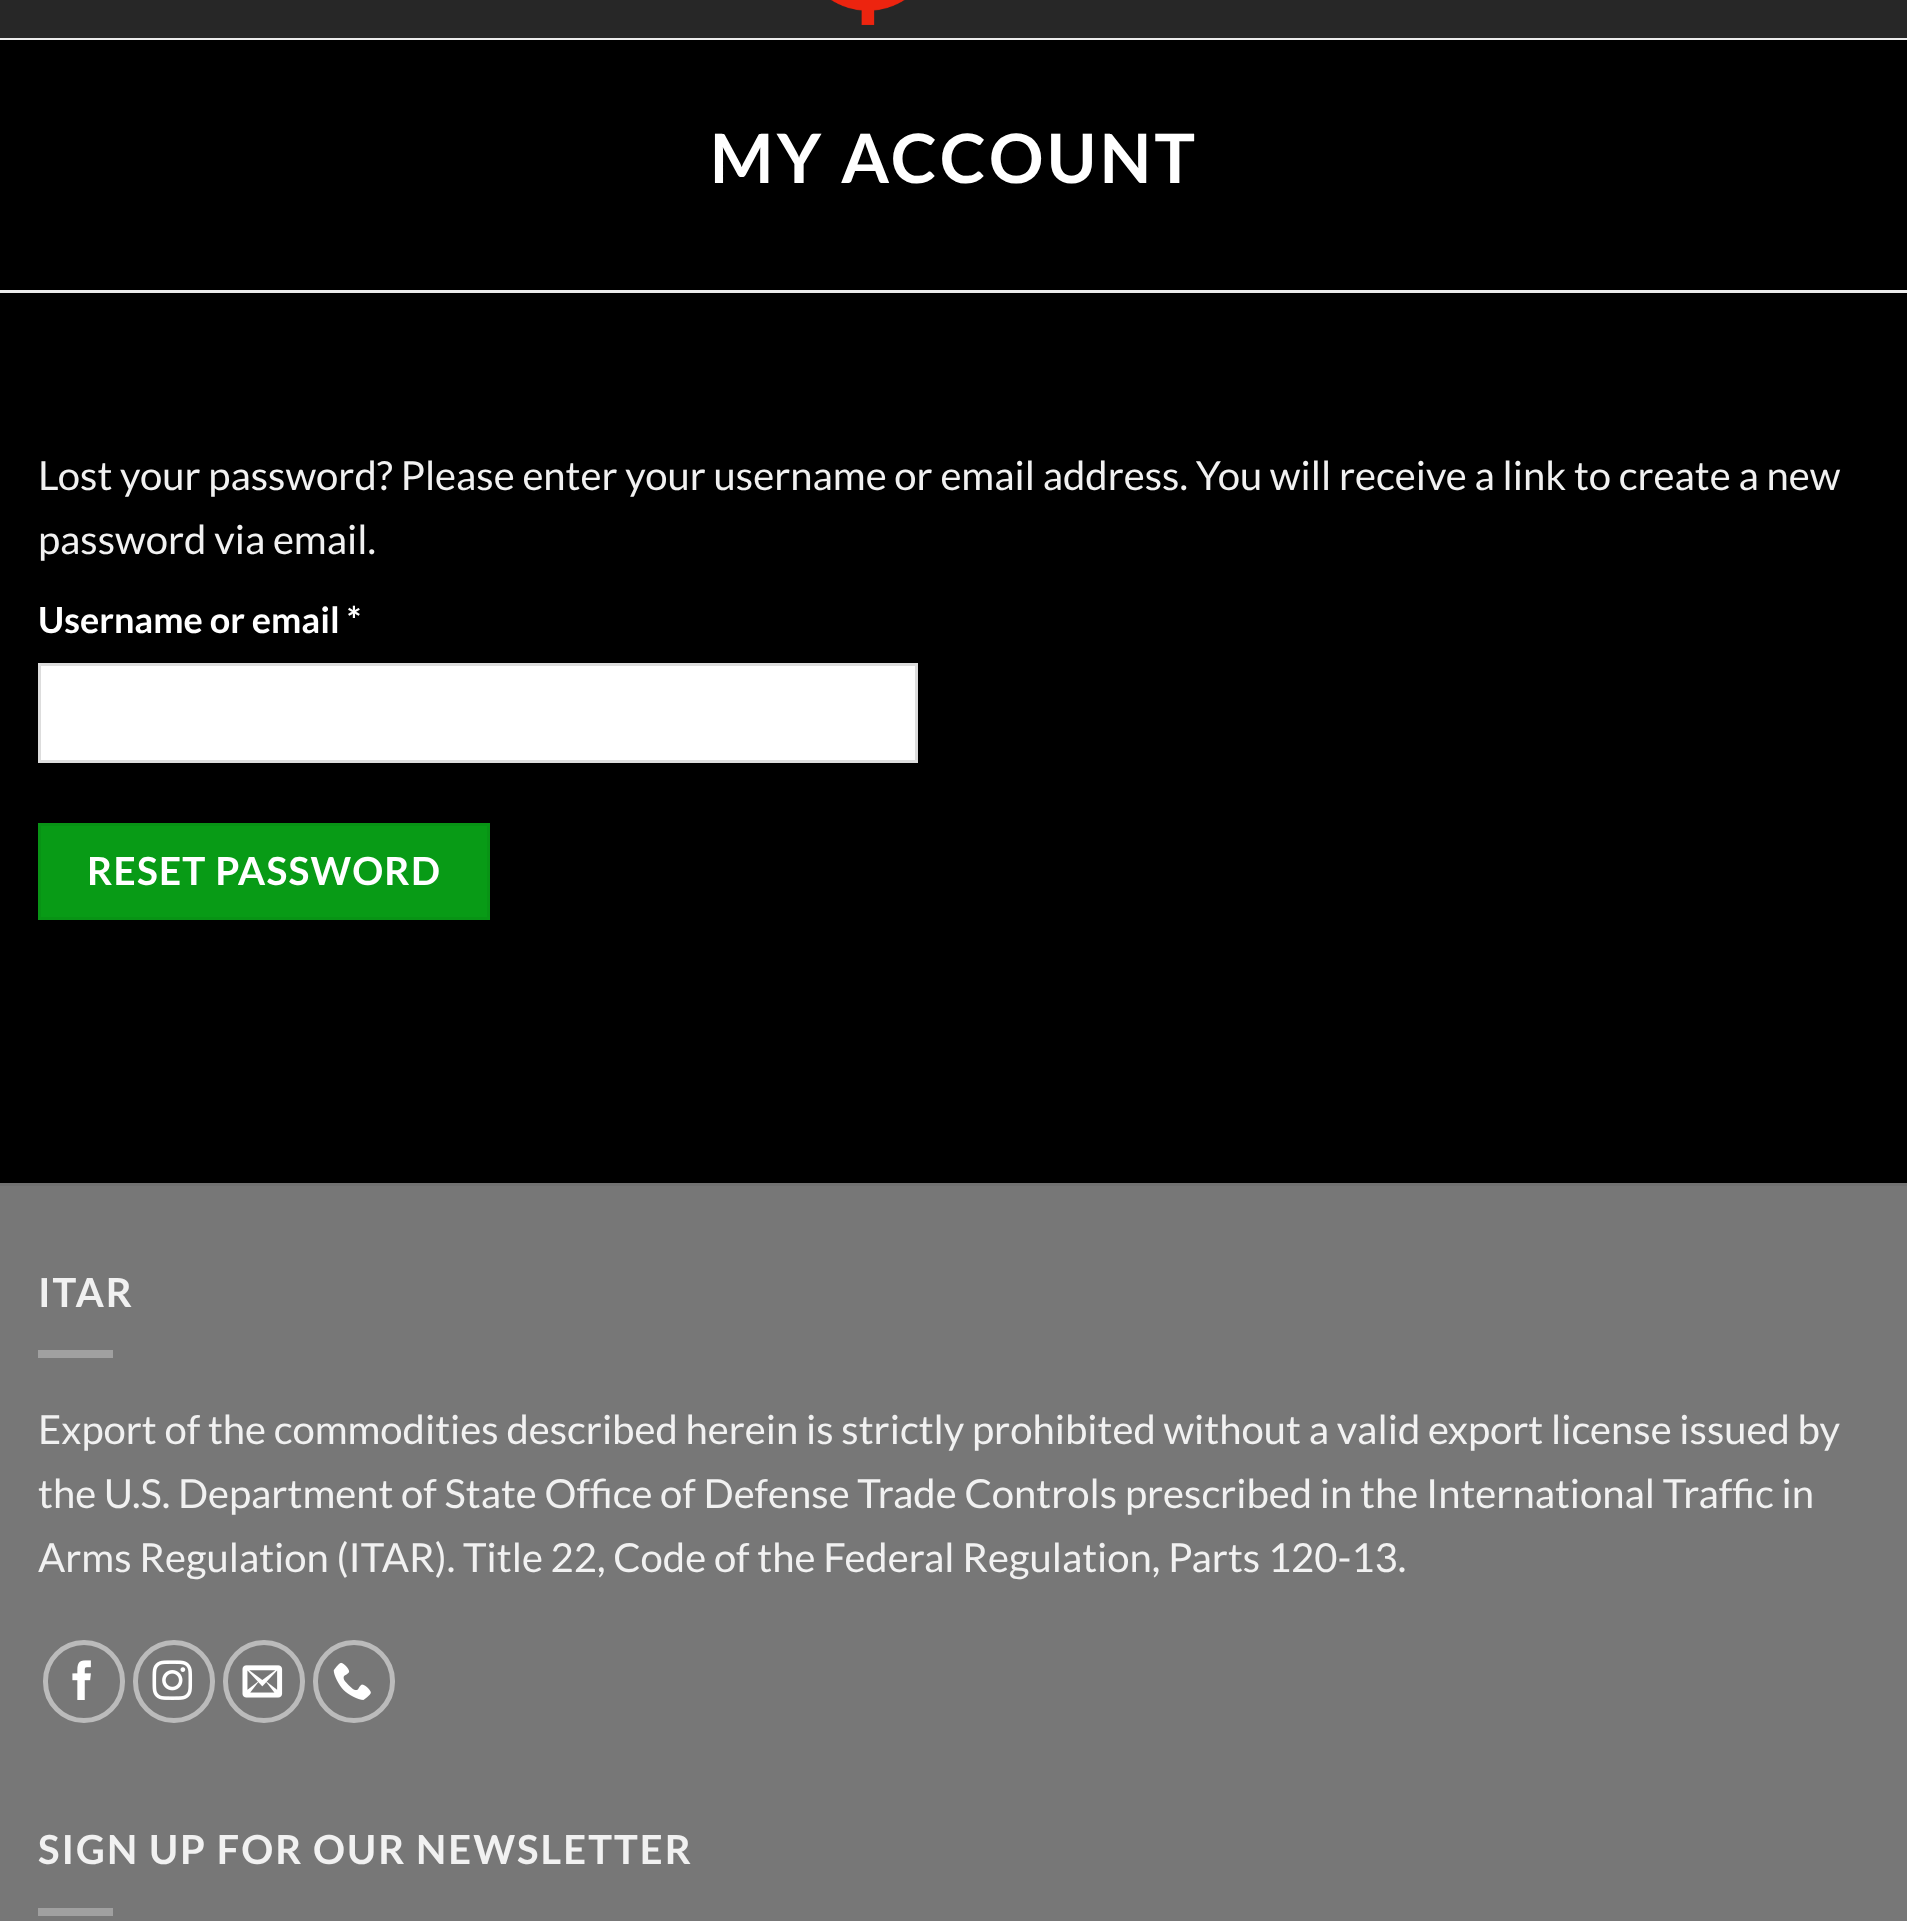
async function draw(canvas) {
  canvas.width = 1907;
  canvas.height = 1921;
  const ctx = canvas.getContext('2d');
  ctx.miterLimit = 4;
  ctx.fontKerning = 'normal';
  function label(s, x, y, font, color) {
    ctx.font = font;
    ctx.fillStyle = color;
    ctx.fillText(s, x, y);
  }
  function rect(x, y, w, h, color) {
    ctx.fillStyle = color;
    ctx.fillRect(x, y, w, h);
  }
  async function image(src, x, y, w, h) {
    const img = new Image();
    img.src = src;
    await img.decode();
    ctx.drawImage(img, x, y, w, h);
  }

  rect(0, 0, 1907, 1921, '#000');
  rect(0, 0, 1907, 38, '#272727');
  await image('assets/img1.png', 831, 0, 74, 25);
  rect(0, 38, 1907, 2, '#ececec');
  rect(0, 290, 1907, 3, '#ececec');
  ctx.letterSpacing = '3.4px';
  label('MY ACCOUNT', 710, 183, 'bold 68px Lato', '#fff');
  ctx.letterSpacing = '0px';
  label('Lost your password? Please enter your username or email address. You will receive a link to create a new', 38, 490, '40px Lato', '#f1f1f1');
  label('password via email.', 38, 554, '40px Lato', '#f1f1f1');
  label('Username or email *', 38, 633, 'bold 36px Lato', '#fff');
  ctx.beginPath();
  ctx.rect(39.5, 664.5, 877, 97);
  ctx.fill();
  ctx.strokeStyle = '#ddd';
  ctx.lineWidth = 3;
  ctx.stroke();
  ctx.fillStyle = '#089b16';
  ctx.beginPath();
  ctx.rect(39.5, 824.5, 449, 94);
  ctx.fill();
  ctx.strokeStyle = '#089315';
  ctx.stroke();
  ctx.letterSpacing = '1.2px';
  label('RESET PASSWORD', 87, 885, 'bold 38.75px Lato', '#fff');
  rect(0, 1186, 1907, 735, '#777');
  rect(0, 1183, 1907, 3, '#717171');
  ctx.letterSpacing = '2px';
  label('ITAR', 38, 1307, 'bold 40px Lato', '#f1f1f1');
  rect(38, 1350, 75, 8, '#a0a0a0');
  ctx.letterSpacing = '0px';
  label('Export of the commodities described herein is strictly prohibited without a valid export license issued by', 38, 1444, '40px Lato', '#f1f1f1');
  label('the U.S. Department of State Office of Defense Trade Controls prescribed in the International Traffic in', 38, 1508, '40px Lato', '#f1f1f1');
  label('Arms Regulation (ITAR). Title 22, Code of the Federal Regulation, Parts 120-13.', 38, 1572, '40px Lato', '#f1f1f1');
  ctx.beginPath();
  ctx.roundRect(45.5, 1642.5, 77, 78, 38.5);
  ctx.strokeStyle = '#bbb';
  ctx.lineWidth = 5;
  ctx.stroke();
  await image('assets/img2.png', 72, 1660, 19, 40);
  ctx.beginPath();
  ctx.roundRect(135.5, 1642.5, 77, 78, 38.5);
  ctx.stroke();
  await image('assets/img3.png', 152, 1660, 41, 40);
  ctx.beginPath();
  ctx.roundRect(225.5, 1642.5, 77, 78, 38.5);
  ctx.stroke();
  await image('assets/img4.png', 242, 1665, 41, 33);
  ctx.beginPath();
  ctx.roundRect(315.5, 1642.5, 77, 78, 38.5);
  ctx.stroke();
  await image('assets/img5.png', 333, 1662, 38, 38);
  ctx.letterSpacing = '2px';
  label('SIGN UP FOR OUR NEWSLETTER', 38, 1864, 'bold 40px Lato', '#f1f1f1');
  rect(38, 1908, 75, 8, '#a0a0a0');
}

draw(document.querySelector('canvas'));
